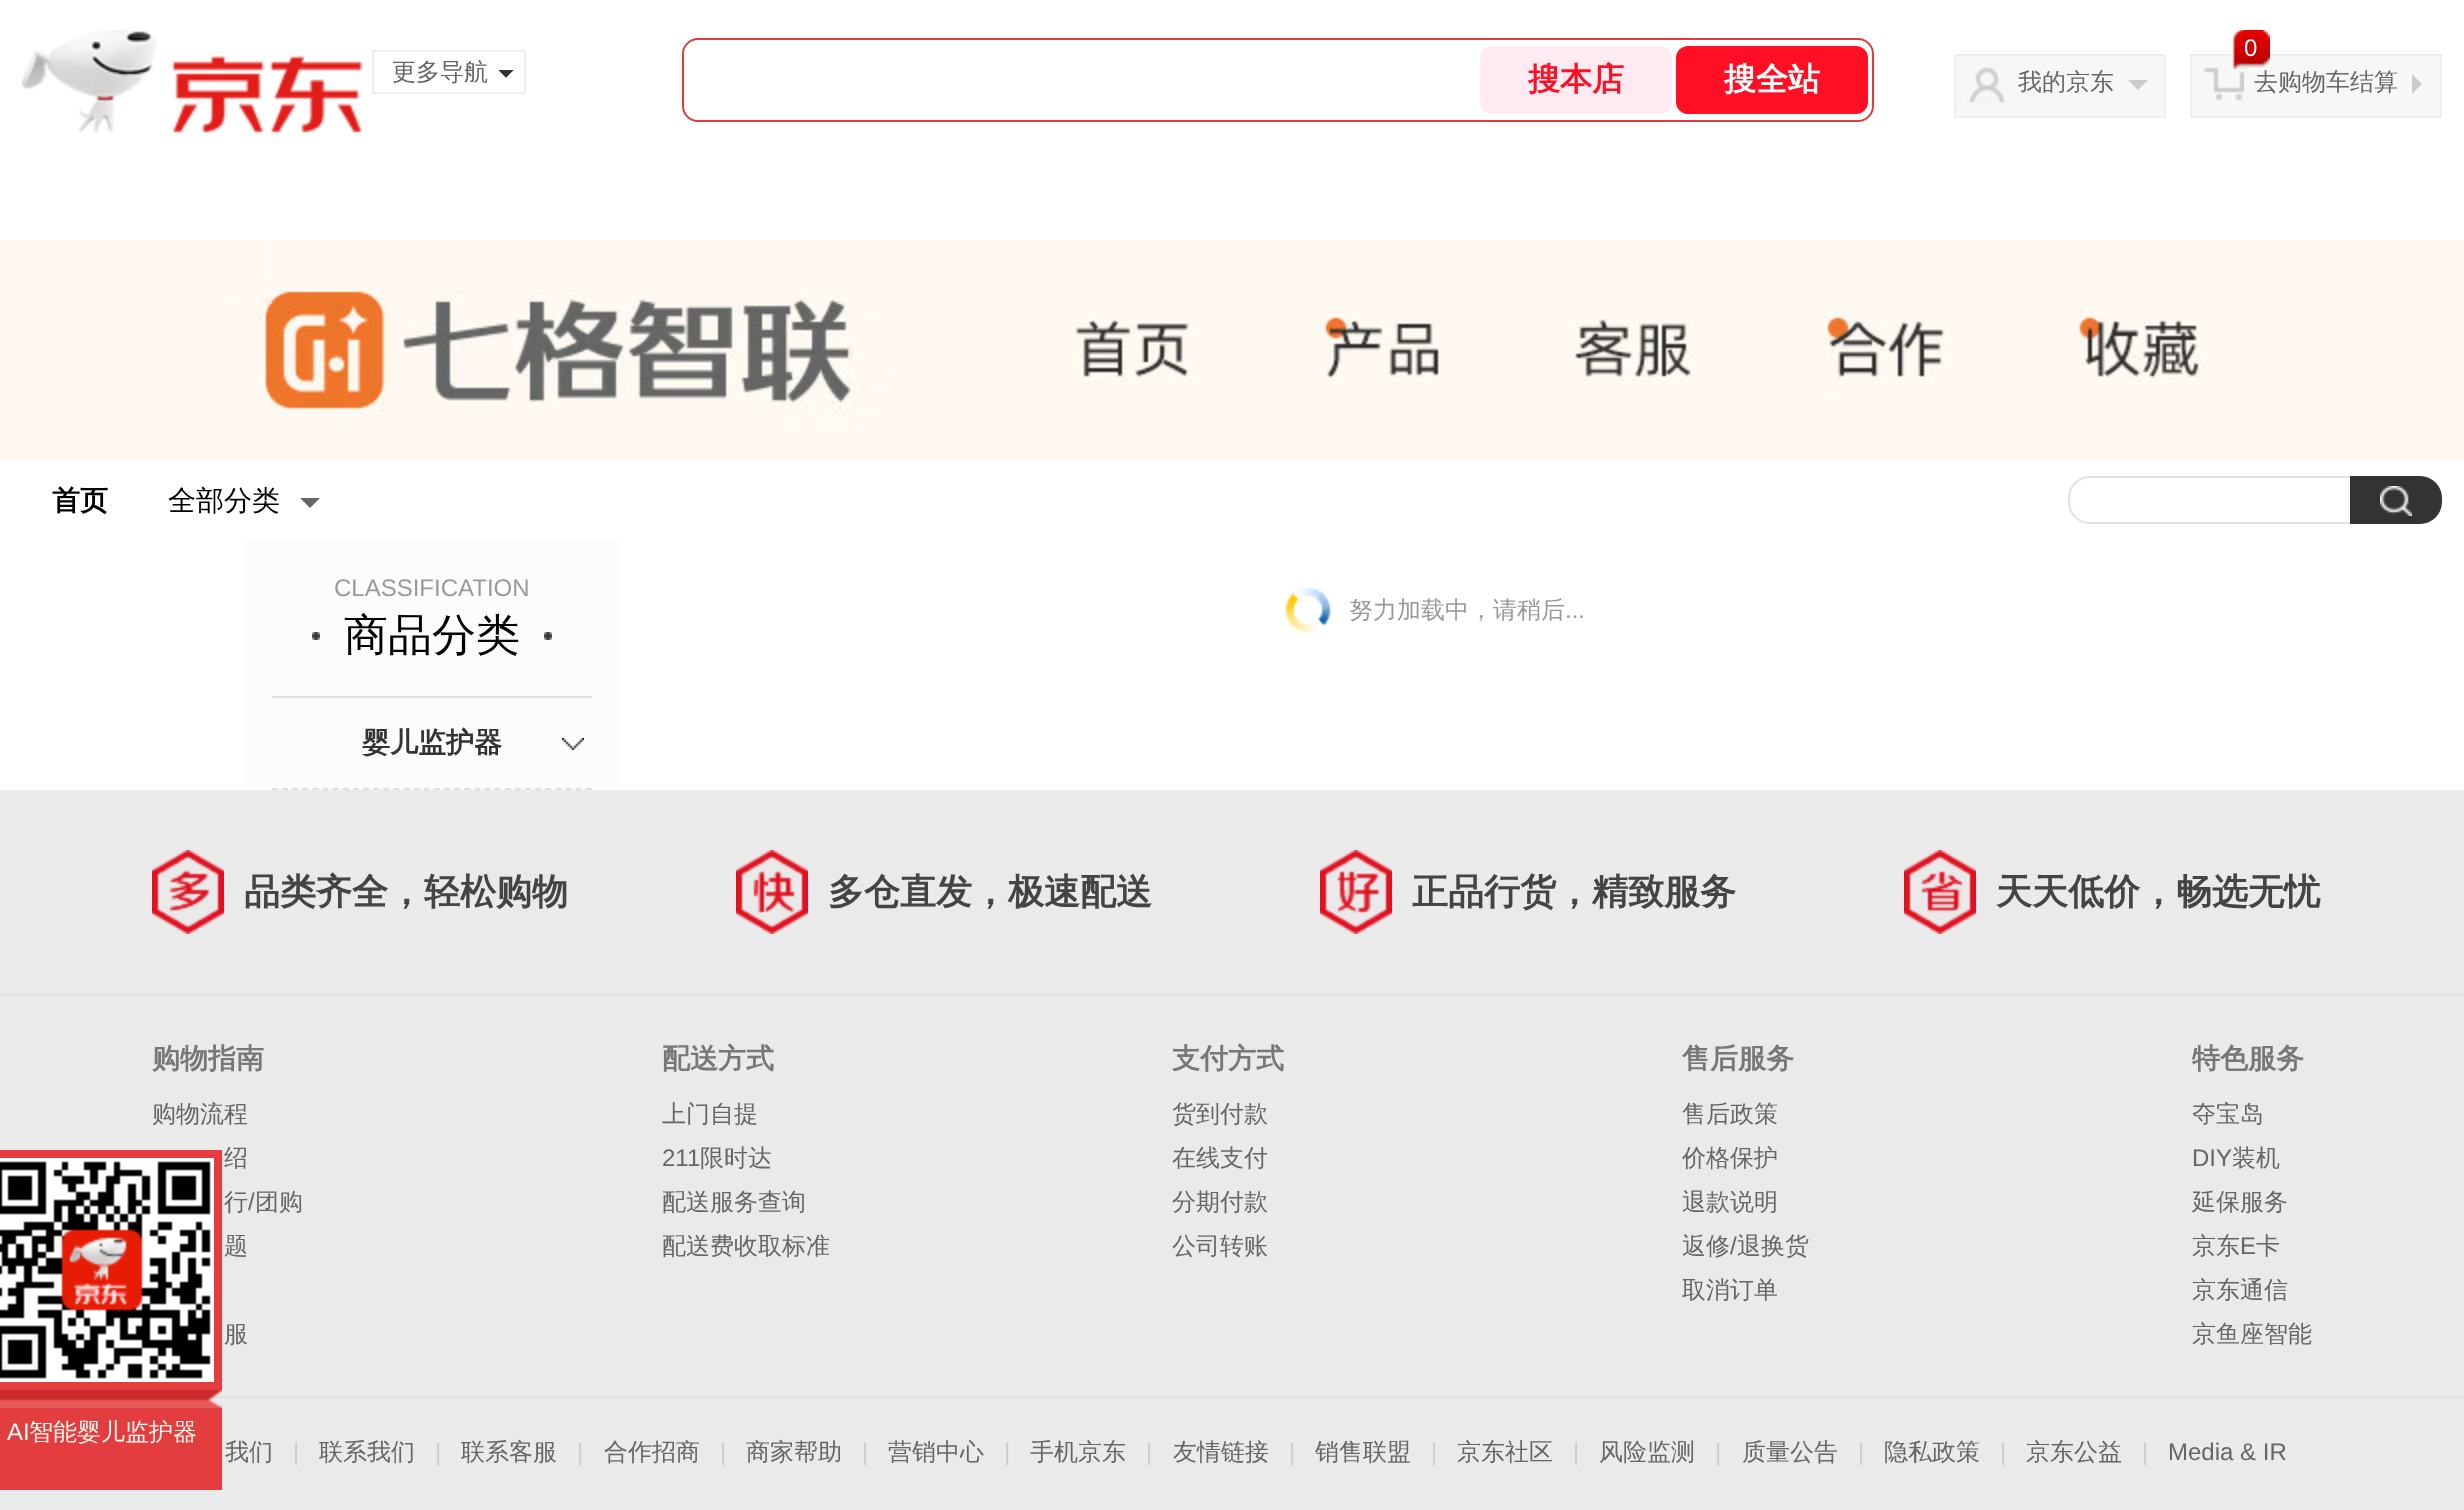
async function draw(canvas) {
  canvas.width = 2464;
  canvas.height = 1510;
  const ctx = canvas.getContext('2d');
  ctx.miterLimit = 4;
  ctx.fontKerning = 'normal';
  function label(s, x, y, font, color) {
    ctx.font = font;
    ctx.fillStyle = color;
    ctx.fillText(s, x, y);
  }
  function rect(x, y, w, h, color) {
    ctx.fillStyle = color;
    ctx.fillRect(x, y, w, h);
  }
  function roundedRect(x, y, w, h, r, color) {
    ctx.fillStyle = color;
    ctx.beginPath();
    ctx.roundRect(x, y, w, h, r);
    ctx.fill();
  }
  async function image(src, x, y, w, h) {
    const img = new Image();
    img.src = src;
    await img.decode();
    ctx.drawImage(img, x, y, w, h);
  }
  let path;

  rect(0, 0, 2464, 1510, '#fff');
  await image('assets/img1.png', 22, 30, 340, 103);
  ctx.strokeStyle = '#eee';
  ctx.lineWidth = 2;
  ctx.strokeRect(373, 51, 152, 42);
  label('更多导航', 392, 80, '500 24px WenQuanYi Zen Hei', '#666');
  ctx.fillStyle = '#333';
  path = new Path2D('M498 70H514L506 78Z');
  ctx.fill(path);
  ctx.fillStyle = '#fff';
  path = new Path2D('M514 70V86L506 78ZM498 86V70L506 78Z');
  ctx.fill(path);
  ctx.beginPath();
  ctx.roundRect(683, 39, 1190, 82, 15);
  ctx.strokeStyle = '#e4393c';
  ctx.stroke();
  ctx.beginPath();
  ctx.roundRect(684, 40, 800, 80, [16, 0, 0, 16]);
  ctx.fill();
  roundedRect(1480, 46, 192, 68, 12, '#ffebf1');
  label('搜本店', 1528, 90, 'bold 32px WenQuanYi Zen Hei', '#ff0f23');
  roundedRect(1676, 46, 192, 68, 12, '#ff0f23');
  label('搜全站', 1724, 90, 'bold 32px WenQuanYi Zen Hei', '#fff');
  rect(1956, 56, 208, 60, '#f7f7f7');
  await image('assets/img2.png', 1956, 67, 49, 42);
  ctx.strokeStyle = '#efefef';
  ctx.strokeRect(1955, 55, 210, 62);
  label('我的京东', 2018, 90, '500 24px WenQuanYi Zen Hei', '#666');
  ctx.fillStyle = '#ccc';
  path = new Path2D('M2128 80H2148L2138 90Z');
  ctx.fill(path);
  rect(2192, 56, 248, 60, '#f7f7f7');
  await image('assets/img3.png', 2203, 67, 41, 34);
  ctx.strokeRect(2191, 55, 250, 62);
  label('去购物车结算', 2254, 90, '500 24px WenQuanYi Zen Hei', '#666');
  await image('assets/img4.png', 2232, 30, 38, 40);
  await image('assets/img5.png', 2244, 30, 26, 39);
  label('0', 2244, 56, '24px Liberation Sans', '#fff');
  ctx.fillStyle = '#ccc';
  path = new Path2D('M2412 94V74L2422 84Z');
  ctx.fill(path);
  await image('assets/img6.png', 0, 240, 2464, 220);
  label('首页', 52, 510, 'bold 28px WenQuanYi Zen Hei', '#000');
  label('全部分类', 168, 510, '500 28px WenQuanYi Zen Hei', '#000');
  ctx.fillStyle = '#666';
  path = new Path2D('M300 498H320L310 508Z');
  ctx.fill(path);
  ctx.beginPath();
  ctx.roundRect(2069, 477, 282, 46, [21, 0, 0, 21]);
  ctx.strokeStyle = '#e1e1e1';
  ctx.stroke();
  ctx.fillStyle = '#333';
  ctx.beginPath();
  ctx.roundRect(2350, 476, 92, 48, [0, 22, 22, 0]);
  ctx.fill();
  await image('assets/img7.png', 2380, 486, 32, 30);
  rect(242, 540, 380, 250, '#fcfcfc');
  label('CLASSIFICATION', 334, 596, '24px Liberation Sans', '#999');
  rect(272, 696, 320, 2, '#e1e1e1');
  await image('assets/img8.png', 312, 632, 8, 8);
  label('商品分类', 344, 650, '500 44px WenQuanYi Zen Hei', '#000');
  await image('assets/img8.png', 544, 632, 8, 8);
  path = new Path2D('M272 789H592');
  ctx.setLineDash([6, 4.12]);
  ctx.stroke(path);
  label('婴儿监护器', 362, 752, 'bold 28px WenQuanYi Zen Hei', '#333');
  await image('assets/img9.png', 562, 738, 22, 12);
  await image('assets/img10.png', 1285, 587, 46, 46);
  label('努力加载中，请稍后', 1349, 618, '500 24px WenQuanYi Zen Hei', '#999');
  label('...', 1565, 618, '24px Liberation Sans', '#999');
  rect(0, 790, 2464, 720, '#eaeaea');
  rect(0, 1150, 222, 240, '#e43d3f');
  await image('assets/img11.png', 0, 1158, 214, 224);
  rect(207, 1396, 2257, 2, '#dedede');
  await image('assets/img12.png', 0, 1390, 222, 18);
  rect(0, 1408, 222, 82, '#e43d3f');
  label('AI', 7, 1440, '24px Liberation Sans', '#fffbee');
  label('智能婴儿监护器', 29, 1440, '500 24px WenQuanYi Zen Hei', '#fffbee');
  await image('assets/img13.png', 152, 850, 72, 84);
  label('品类齐全，轻松购物', 244, 904, 'bold 36px WenQuanYi Zen Hei', '#444');
  await image('assets/img14.png', 736, 850, 72, 84);
  label('多仓直发，极速配送', 828, 904, 'bold 36px WenQuanYi Zen Hei', '#444');
  await image('assets/img15.png', 1320, 850, 72, 84);
  label('正品行货，精致服务', 1412, 904, 'bold 36px WenQuanYi Zen Hei', '#444');
  await image('assets/img16.png', 1904, 850, 72, 84);
  label('天天低价，畅选无忧', 1996, 904, 'bold 36px WenQuanYi Zen Hei', '#444');
  rect(0, 994, 2464, 2, '#dedede');
  label('购物指南', 152, 1068, 'bold 28px WenQuanYi Zen Hei', '#777');
  label('购物流程', 152, 1122, '500 24px WenQuanYi Zen Hei', '#666');
  label('绍', 224, 1166, '500 24px WenQuanYi Zen Hei', '#666');
  label('行', 224, 1210, '500 24px WenQuanYi Zen Hei', '#666');
  label('/', 248, 1210, '24px Liberation Sans', '#666');
  label('团购', 255, 1210, '500 24px WenQuanYi Zen Hei', '#666');
  label('题', 224, 1254, '500 24px WenQuanYi Zen Hei', '#666');
  label('服', 224, 1342, '500 24px WenQuanYi Zen Hei', '#666');
  label('配送方式', 662, 1068, 'bold 28px WenQuanYi Zen Hei', '#777');
  label('上门自提', 662, 1122, '500 24px WenQuanYi Zen Hei', '#666');
  label('211', 662, 1166, '24px Liberation Sans', '#666');
  label('限时达', 700, 1166, '500 24px WenQuanYi Zen Hei', '#666');
  label('配送服务查询', 662, 1210, '500 24px WenQuanYi Zen Hei', '#666');
  label('配送费收取标准', 662, 1254, '500 24px WenQuanYi Zen Hei', '#666');
  label('支付方式', 1172, 1068, 'bold 28px WenQuanYi Zen Hei', '#777');
  label('货到付款', 1172, 1122, '500 24px WenQuanYi Zen Hei', '#666');
  label('在线支付', 1172, 1166, '500 24px WenQuanYi Zen Hei', '#666');
  label('分期付款', 1172, 1210, '500 24px WenQuanYi Zen Hei', '#666');
  label('公司转账', 1172, 1254, '500 24px WenQuanYi Zen Hei', '#666');
  label('售后服务', 1682, 1068, 'bold 28px WenQuanYi Zen Hei', '#777');
  label('售后政策', 1682, 1122, '500 24px WenQuanYi Zen Hei', '#666');
  label('价格保护', 1682, 1166, '500 24px WenQuanYi Zen Hei', '#666');
  label('退款说明', 1682, 1210, '500 24px WenQuanYi Zen Hei', '#666');
  label('返修', 1682, 1254, '500 24px WenQuanYi Zen Hei', '#666');
  label('/', 1730, 1254, '24px Liberation Sans', '#666');
  label('退换货', 1737, 1254, '500 24px WenQuanYi Zen Hei', '#666');
  label('取消订单', 1682, 1298, '500 24px WenQuanYi Zen Hei', '#666');
  label('特色服务', 2192, 1068, 'bold 28px WenQuanYi Zen Hei', '#777');
  label('夺宝岛', 2192, 1122, '500 24px WenQuanYi Zen Hei', '#666');
  label('DIY', 2192, 1166, '24px Liberation Sans', '#666');
  label('装机', 2232, 1166, '500 24px WenQuanYi Zen Hei', '#666');
  label('延保服务', 2192, 1210, '500 24px WenQuanYi Zen Hei', '#666');
  label('京东', 2192, 1254, '500 24px WenQuanYi Zen Hei', '#666');
  label('E', 2240, 1254, '24px Liberation Sans', '#666');
  label('卡', 2256, 1254, '500 24px WenQuanYi Zen Hei', '#666');
  label('京东通信', 2192, 1298, '500 24px WenQuanYi Zen Hei', '#666');
  label('京鱼座智能', 2192, 1342, '500 24px WenQuanYi Zen Hei', '#666');
  label('我们', 225, 1460, '500 24px WenQuanYi Zen Hei', '#666');
  label('|', 293, 1460, '24px Liberation Sans', '#ccc');
  label('联系我们', 319, 1460, '500 24px WenQuanYi Zen Hei', '#666');
  label('|', 435, 1460, '24px Liberation Sans', '#ccc');
  label('联系客服', 461, 1460, '500 24px WenQuanYi Zen Hei', '#666');
  label('|', 577, 1460, '24px Liberation Sans', '#ccc');
  label('合作招商', 604, 1460, '500 24px WenQuanYi Zen Hei', '#666');
  label('|', 720, 1460, '24px Liberation Sans', '#ccc');
  label('商家帮助', 746, 1460, '500 24px WenQuanYi Zen Hei', '#666');
  label('|', 862, 1460, '24px Liberation Sans', '#ccc');
  label('营销中心', 888, 1460, '500 24px WenQuanYi Zen Hei', '#666');
  label('|', 1004, 1460, '24px Liberation Sans', '#ccc');
  label('手机京东', 1030, 1460, '500 24px WenQuanYi Zen Hei', '#666');
  label('|', 1146, 1460, '24px Liberation Sans', '#ccc');
  label('友情链接', 1173, 1460, '500 24px WenQuanYi Zen Hei', '#666');
  label('|', 1289, 1460, '24px Liberation Sans', '#ccc');
  label('销售联盟', 1315, 1460, '500 24px WenQuanYi Zen Hei', '#666');
  label('|', 1431, 1460, '24px Liberation Sans', '#ccc');
  label('京东社区', 1457, 1460, '500 24px WenQuanYi Zen Hei', '#666');
  label('|', 1573, 1460, '24px Liberation Sans', '#ccc');
  label('风险监测', 1599, 1460, '500 24px WenQuanYi Zen Hei', '#666');
  label('|', 1715, 1460, '24px Liberation Sans', '#ccc');
  label('质量公告', 1742, 1460, '500 24px WenQuanYi Zen Hei', '#666');
  label('|', 1858, 1460, '24px Liberation Sans', '#ccc');
  label('隐私政策', 1884, 1460, '500 24px WenQuanYi Zen Hei', '#666');
  label('|', 2000, 1460, '24px Liberation Sans', '#ccc');
  label('京东公益', 2026, 1460, '500 24px WenQuanYi Zen Hei', '#666');
  label('|', 2142, 1460, '24px Liberation Sans', '#ccc');
  label('Media & IR', 2168, 1460, '24px Liberation Sans', '#666');
}

draw(document.querySelector('canvas'));
